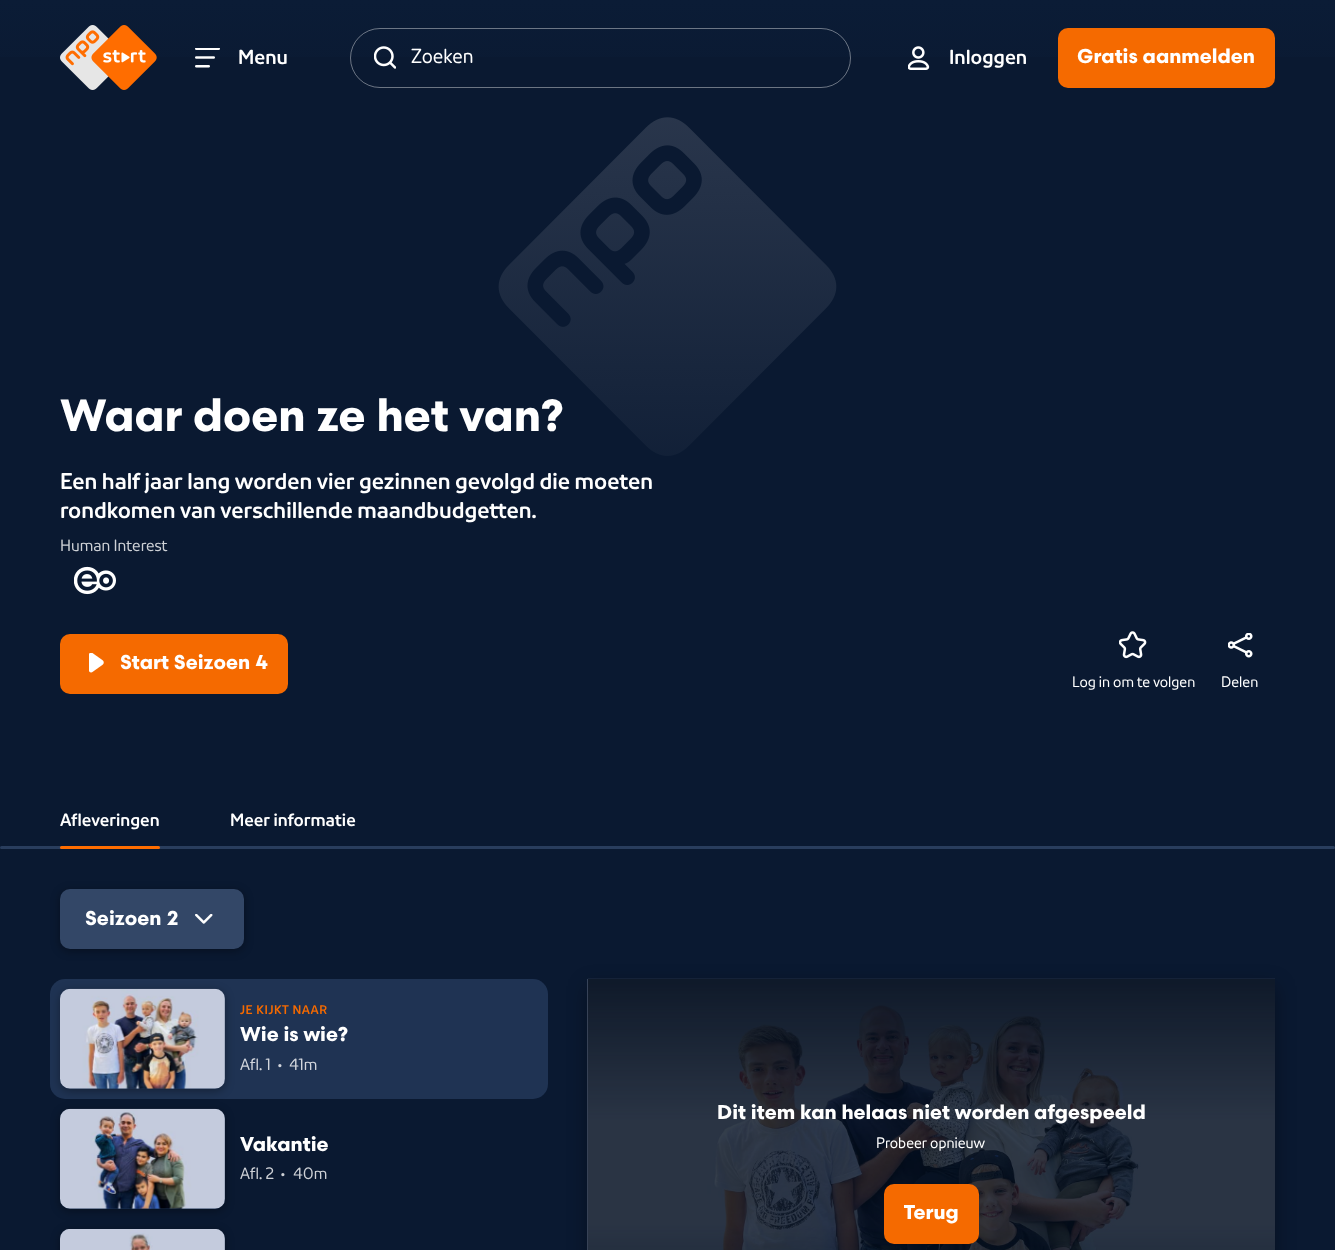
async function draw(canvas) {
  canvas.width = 1335;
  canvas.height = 1250;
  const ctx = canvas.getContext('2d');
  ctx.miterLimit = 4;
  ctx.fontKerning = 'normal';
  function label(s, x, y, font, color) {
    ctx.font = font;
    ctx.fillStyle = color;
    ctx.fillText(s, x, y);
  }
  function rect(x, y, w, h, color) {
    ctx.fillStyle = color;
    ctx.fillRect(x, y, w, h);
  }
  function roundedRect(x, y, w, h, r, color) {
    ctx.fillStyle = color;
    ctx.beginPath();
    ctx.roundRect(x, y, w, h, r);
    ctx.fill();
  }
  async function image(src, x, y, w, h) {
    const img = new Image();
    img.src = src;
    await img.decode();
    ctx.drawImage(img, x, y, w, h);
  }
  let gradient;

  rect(0, 0, 1335, 1250, '#0a1931');
  gradient = ctx.createLinearGradient(668, 115, 668, 0);
  gradient.addColorStop(0, '#0a1931');
  gradient.addColorStop(1, '#0b1c36');
  ctx.fillStyle = gradient;
  ctx.fillRect(0, 0, 1335, 57);
  await image('assets/img1.png', 60, 25, 97, 65);
  await image('assets/img2.png', 195, 48, 25, 20);
  label('Menu', 238, 64, 'bold 20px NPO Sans', '#fff');
  ctx.beginPath();
  ctx.roundRect(350.5, 28.5, 500, 59, 29.5);
  ctx.strokeStyle = '#ffffff66';
  ctx.stroke();
  await image('assets/img3.png', 374, 46, 22, 23);
  label('Zoeken', 411, 63, '20px NPO Sans', '#fff');
  await image('assets/img4.png', 908, 46, 22, 24);
  label('Inloggen', 949, 64, 'bold 20px NPO Sans', '#fff');
  roundedRect(1058, 28, 217, 60, 10, '#f56a00');
  label('Gratis aanmelden', 1077, 63, 'bold 20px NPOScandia', '#fff');
  await image('assets/img5.png', 498, 117, 339, 339);
  gradient = ctx.createLinearGradient(668, 0, 668, 573);
  gradient.addColorStop(0, '#0a193100');
  gradient.addColorStop(1, '#0a1931');
  ctx.fillStyle = gradient;
  ctx.fillRect(498, 117, 339, 339);
  label('Waar doen ze het van?', 60, 431, 'bold 45px NPOScandia', '#fff');
  label('Een half jaar lang worden vier gezinnen gevolgd die moeten', 60, 489, 'bold 22.5px NPO Sans', '#fff');
  label('rondkomen van verschillende maandbudgetten.', 60, 518, 'bold 22.5px NPO Sans', '#fff');
  label('Human Interest', 60, 551, '16.25px NPO Sans', '#ced1d6');
  await image('assets/img6.png', 74, 566, 42, 29);
  roundedRect(60, 634, 228, 60, 10, '#f56a00');
  await image('assets/img7.png', 89, 653, 15, 20);
  label('Start Seizoen 4', 120, 669, 'bold 20px NPOScandia', '#fff');
  await image('assets/img8.png', 1119, 631, 28, 28);
  label('Log in om te volgen', 1072, 687, '15px NPO Sans', '#fff');
  await image('assets/img9.png', 1228, 633, 25, 25);
  label('Delen', 1221, 687, '15px NPO Sans', '#fff');
  label('Afleveringen', 60, 826, 'bold 17.5px NPO Sans', '#fff');
  roundedRect(0, 846, 1335, 3, 1.5, '#293d5d');
  roundedRect(60, 846, 100, 3, 1.5, '#ff6d00');
  label('Meer informatie', 230, 826, 'bold 17.5px NPO Sans', '#fff');
  ctx.fillStyle = '#00000059';
  ctx.filter = 'blur(5px)';
  ctx.beginPath();
  ctx.roundRect(60, 891, 184, 60, 10);
  ctx.fill();
  ctx.filter = 'none';
  roundedRect(60, 889, 184, 60, 10, '#334767');
  label('Seizoen 2', 85, 925, 'bold 20px NPOScandia', '#fff');
  await image('assets/img10.png', 195, 914, 18, 10);
  roundedRect(50, 979, 498, 120, 15, '#1f3353');
  ctx.fillStyle = '#00000059';
  ctx.filter = 'blur(5px)';
  ctx.beginPath();
  ctx.roundRect(60, 991, 165, 100, 10);
  ctx.fill();
  ctx.filter = 'none';
  roundedRect(60, 989, 165, 100, 10, '#1f3353');
  await image('assets/img11.png', 60, 988, 165, 101);
  ctx.letterSpacing = '0.6px';
  label('JE KIJKT NAAR', 240, 1014, 'bold 12.5px NPO Sans', '#f56a00');
  ctx.letterSpacing = '0px';
  label('Wie is wie?', 240, 1041, 'bold 20px NPOScandia', '#fff');
  label('Afl. 1', 240, 1070, '16.25px NPO Sans', '#d2d6dd');
  label('•', 278, 1070, '16.25px NPO Sans', '#d2d6dd');
  label('41m', 289, 1070, '16.25px NPO Sans', '#d2d6dd');
  ctx.fillStyle = '#00000059';
  ctx.filter = 'blur(5px)';
  ctx.beginPath();
  ctx.roundRect(60, 1111, 165, 100, 10);
  ctx.fill();
  ctx.filter = 'none';
  roundedRect(60, 1109, 165, 100, 10, '#1f3353');
  await image('assets/img12.png', 60, 1108, 165, 101);
  label('Vakantie', 240, 1151, 'bold 20px NPOScandia', '#fff');
  label('Afl. 2', 240, 1179, '16.25px NPO Sans', '#ced1d6');
  label('•', 281, 1179, '16.25px NPO Sans', '#ced1d6');
  label('40m', 293, 1179, '16.25px NPO Sans', '#ced1d6');
  ctx.fillStyle = '#00000059';
  ctx.filter = 'blur(5px)';
  ctx.beginPath();
  ctx.roundRect(60, 1231, 165, 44, 10);
  ctx.fill();
  ctx.filter = 'none';
  roundedRect(60, 1229, 165, 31, 10, '#1f3353');
  await image('assets/img13.png', 60, 1229, 165, 21);
  ctx.fillStyle = '#00000059';
  ctx.filter = 'blur(10px)';
  ctx.beginPath();
  ctx.rect(588, 986, 687, 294);
  ctx.fill();
  ctx.filter = 'none';
  await image('assets/img14.png', 587, 978, 688, 272);
  label('Dit item kan helaas niet worden afgespeeld', 717, 1119, 'bold 20px NPOScandia', '#fff');
  label('Probeer opnieuw', 876, 1148, '15px NPO Sans', '#fff');
  roundedRect(884, 1184, 95, 60, 10, '#f56a00');
  ctx.save();
  ctx.beginPath();
  ctx.rect(904, 1201, 55, 24);
  ctx.clip();
  label('Terug', 903, 1219, 'bold 20px NPOScandia', '#fff');
  ctx.restore();
}

draw(document.querySelector('canvas'));
